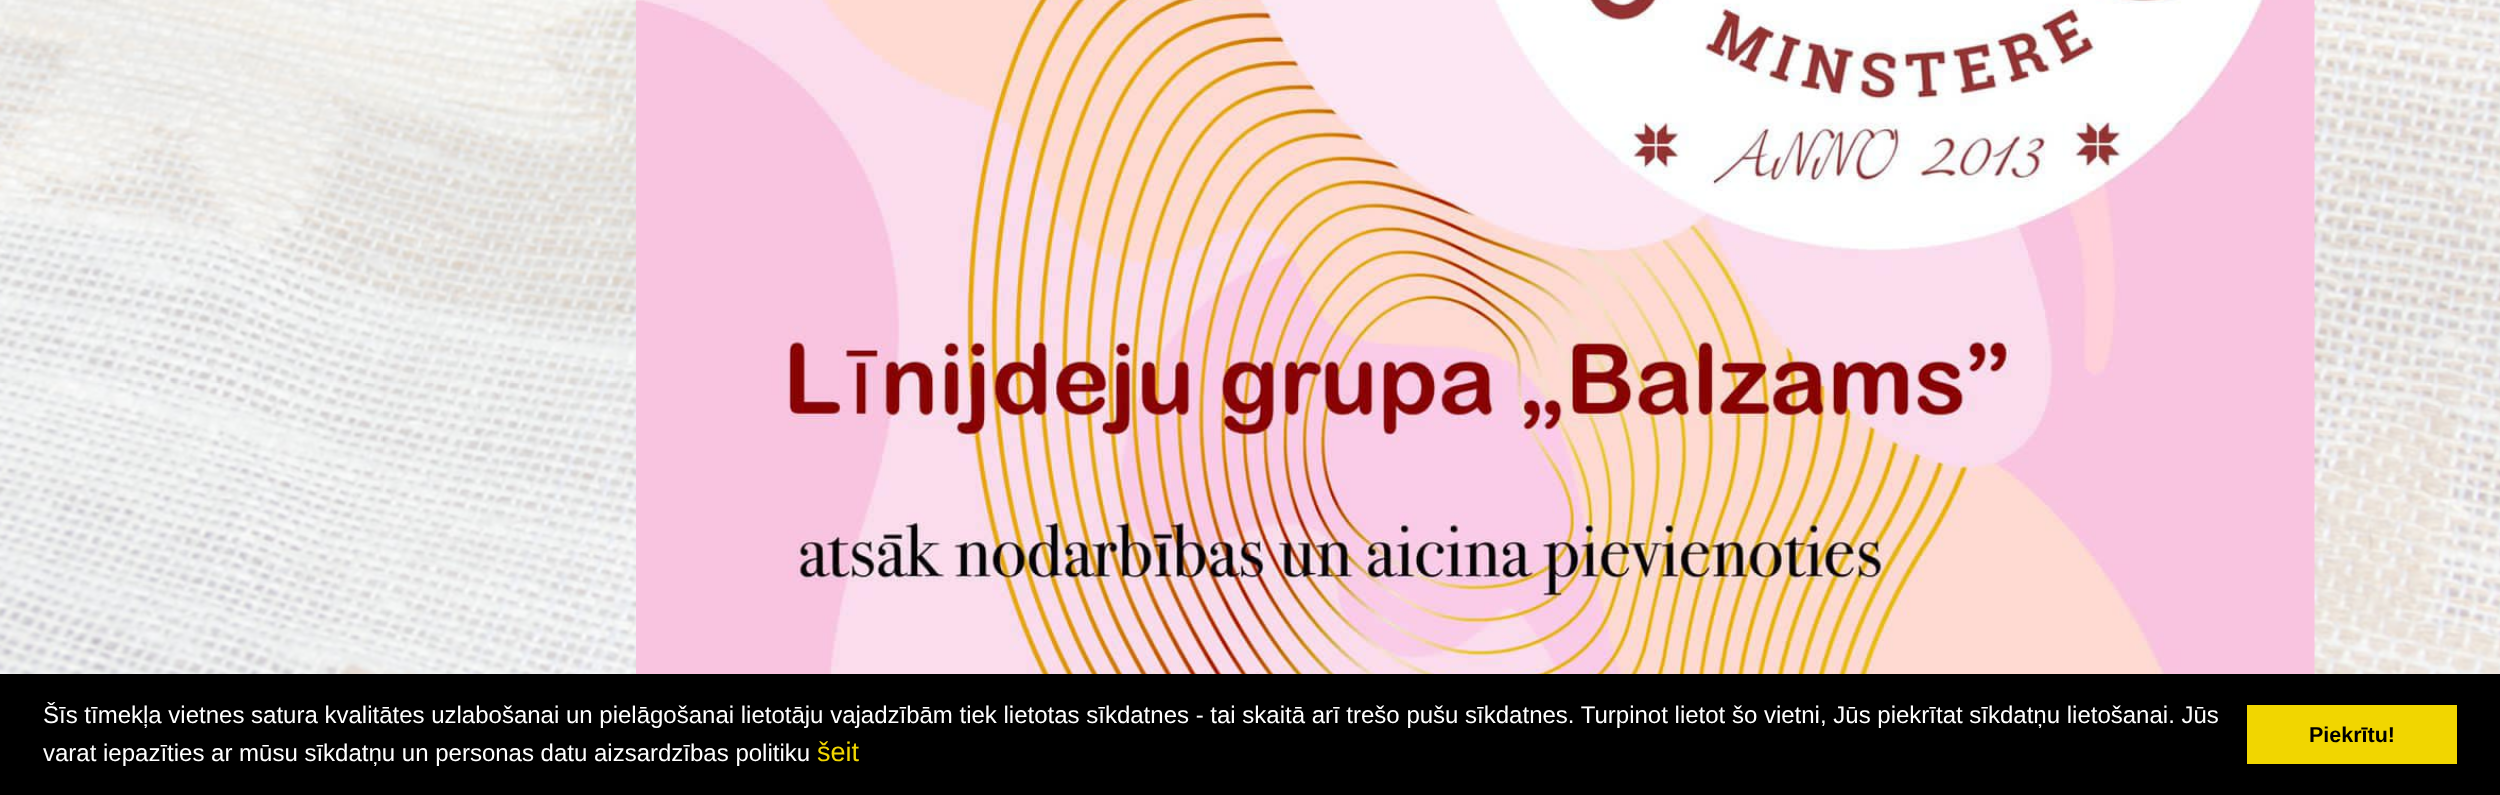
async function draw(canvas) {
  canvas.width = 2500;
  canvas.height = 795;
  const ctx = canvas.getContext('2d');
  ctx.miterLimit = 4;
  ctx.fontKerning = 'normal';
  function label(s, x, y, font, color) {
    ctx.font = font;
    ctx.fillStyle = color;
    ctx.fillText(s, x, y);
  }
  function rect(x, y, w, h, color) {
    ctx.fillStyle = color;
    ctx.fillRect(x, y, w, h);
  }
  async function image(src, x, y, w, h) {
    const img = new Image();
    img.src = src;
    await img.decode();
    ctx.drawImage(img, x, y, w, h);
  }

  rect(0, 0, 2500, 795, '#fff');
  await image('assets/img1.png', 0, 0, 2500, 674);
  await image('assets/img2.png', 636, 0, 1679, 674);
  rect(0, 674, 2500, 121, '#000');
  label('Šīs tīmekļa vietnes satura kvalitātes uzlabošanai un pielāgošanai lietotāju vajadzībām tiek lietotas sīkdatnes - tai skaitā arī trešo pušu sīkdatnes. Turpinot lietot šo vietni, Jūs piekrītat sīkdatņu lietošanai. Jūs', 43, 723, '24px Liberation Sans', '#fff');
  label('varat iepazīties ar mūsu sīkdatņu un personas datu aizsardzības politiku', 43, 761, '24px Liberation Sans', '#fff');
  label('šeit', 817, 761, '27px Liberation Sans', '#f1d600');
  rect(2247, 705, 210, 59, '#f1d600');
  label('Piekrītu!', 2309, 742, 'bold 21.5px Liberation Sans', '#000');
}

draw(document.querySelector('canvas'));
